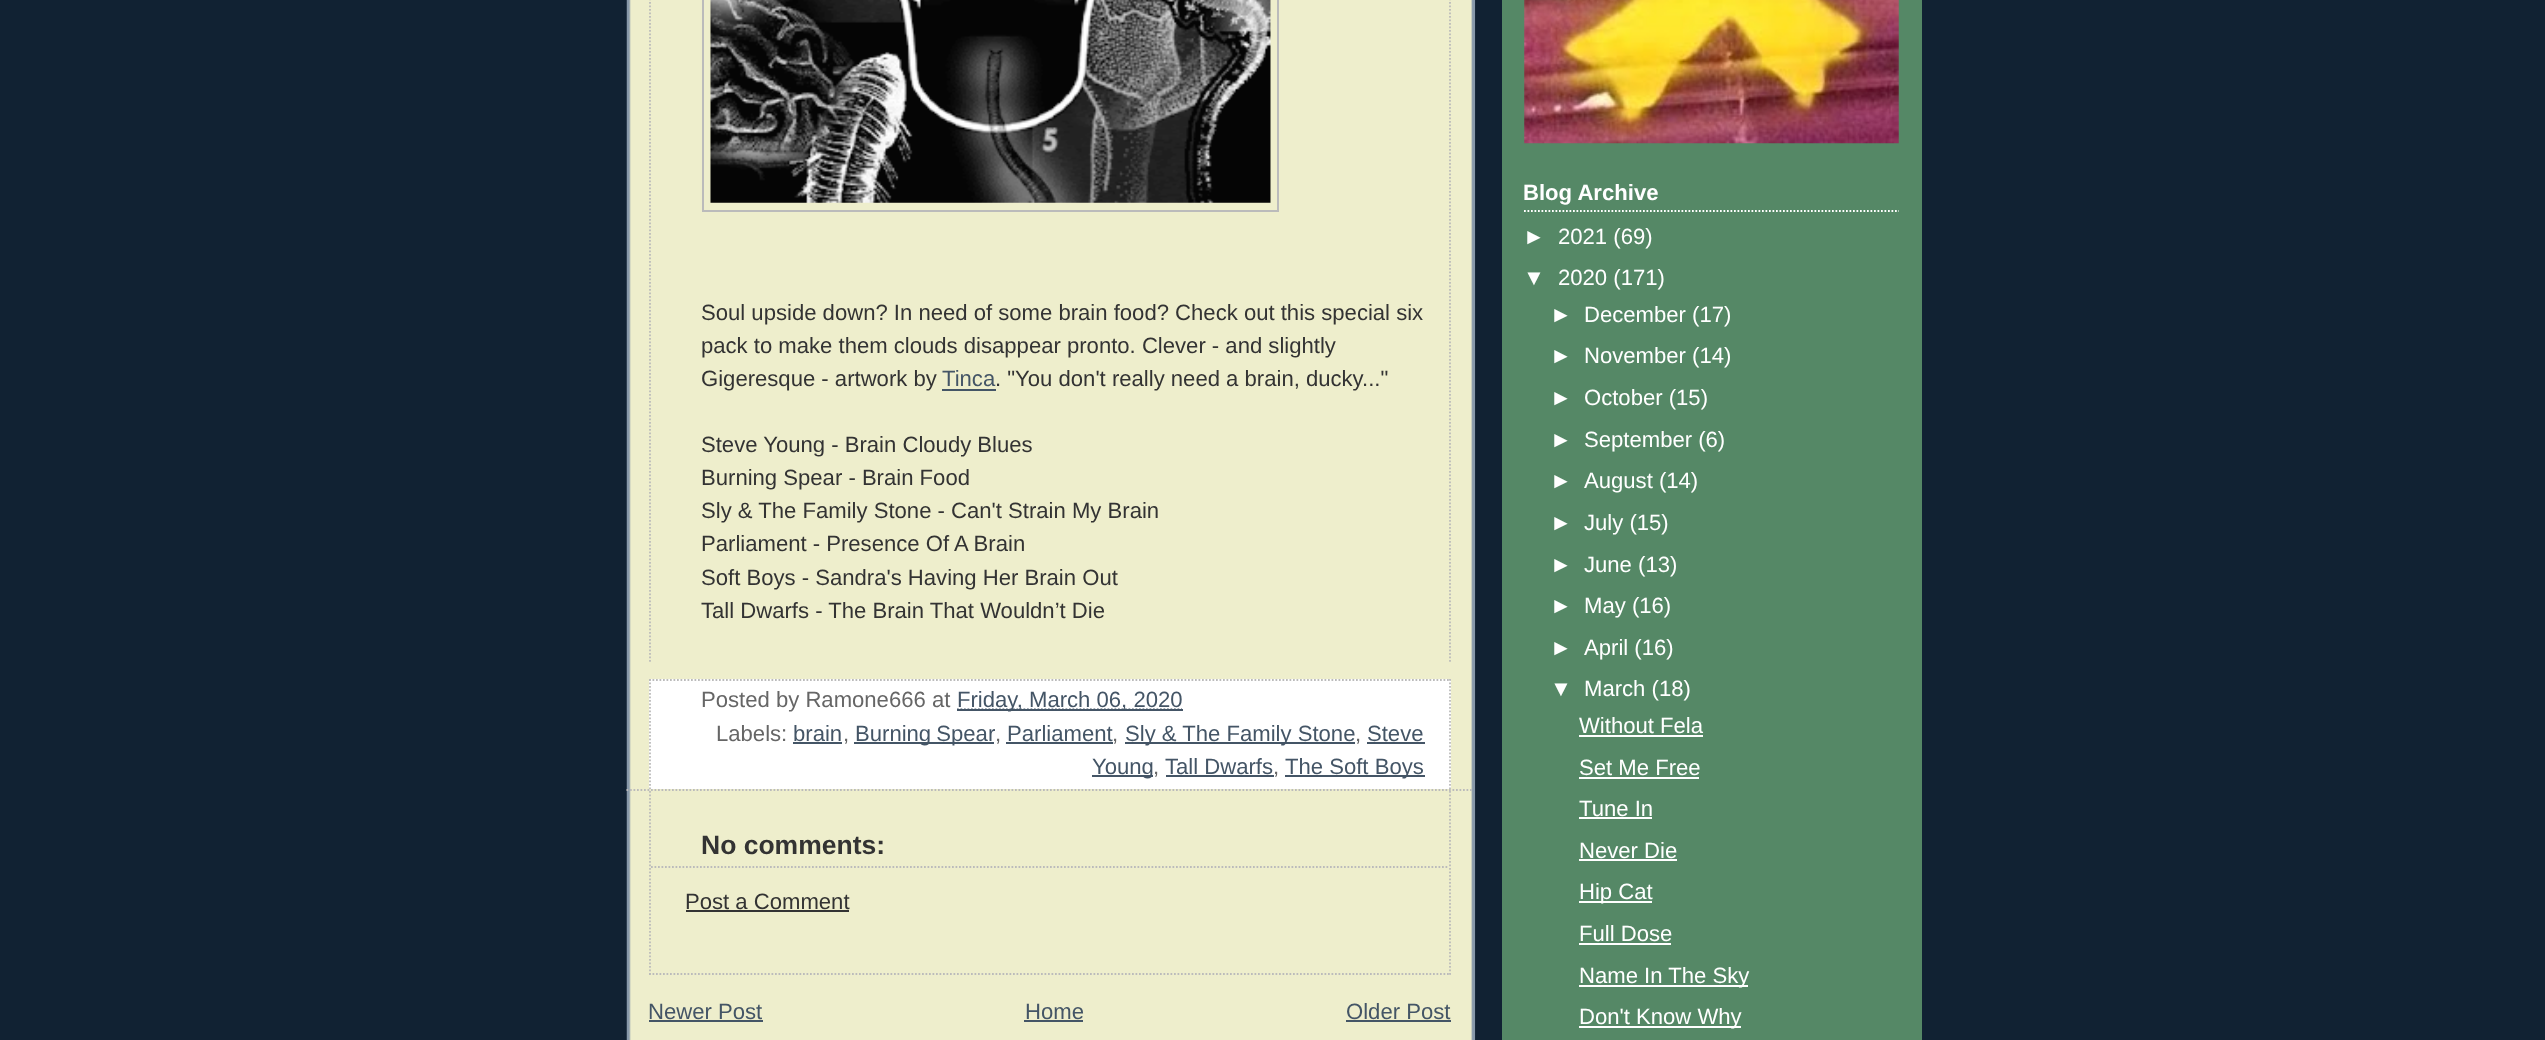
async function draw(canvas) {
  canvas.width = 2545;
  canvas.height = 1040;
  const ctx = canvas.getContext('2d');
  ctx.miterLimit = 4;
  ctx.fontKerning = 'normal';
  function label(s, x, y, font, color) {
    ctx.font = font;
    ctx.fillStyle = color;
    ctx.fillText(s, x, y);
  }
  function rect(x, y, w, h, color) {
    ctx.fillStyle = color;
    ctx.fillRect(x, y, w, h);
  }
  async function image(src, x, y, w, h) {
    const img = new Image();
    img.src = src;
    await img.decode();
    ctx.drawImage(img, x, y, w, h);
  }
  let path;

  rect(0, 0, 2545, 1040, '#123');
  rect(629, 0, 844, 1040, '#eec');
  await image('assets/img1.png', 626, 0, 850, 1040);
  path = new Path2D('M626.5 790H1473.5');
  ctx.strokeStyle = '#bbb';
  ctx.lineWidth = 1.8;
  ctx.setLineDash([1.75, 1.75]);
  ctx.stroke(path);
  path = new Path2D('M1450-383V663');
  ctx.stroke(path);
  path = new Path2D('M650-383V663');
  ctx.stroke(path);
  ctx.lineWidth = 2;
  ctx.setLineDash([]);
  ctx.strokeRect(703, -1, 575, 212);
  await image('assets/img2.png', 710, 0, 561, 203);
  label('Soul upside down? In need of some brain food? Check out this special six', 701, 320, '22.1px Liberation Sans', '#333');
  label('pack to make them clouds disappear pronto. Clever - and slightly', 701, 353, '22.1px Liberation Sans', '#333');
  label('Gigeresque - artwork by', 701, 386, '22.1px Liberation Sans', '#333');
  label('Tinca', 942, 386, '22.1px Liberation Sans', '#456');
  rect(942, 389, 54, 2, '#456');
  label('. "You don\'t really need a brain, ducky..."', 995, 386, '22.1px Liberation Sans', '#333');
  label('Steve Young - Brain Cloudy Blues', 701, 452, '22.1px Liberation Sans', '#333');
  label('Burning Spear - Brain Food', 701, 485, '22.1px Liberation Sans', '#333');
  label('Sly & The Family Stone - Can\'t Strain My Brain', 701, 518, '22.1px Liberation Sans', '#333');
  label('Parliament - Presence Of A Brain', 701, 551, '22.1px Liberation Sans', '#333');
  label('Soft Boys - Sandra\'s Having Her Brain Out', 701, 585, '22.1px Liberation Sans', '#333');
  label('Tall Dwarfs - The Brain That Wouldn’t Die', 701, 618, '22.1px Liberation Sans', '#333');
  rect(649, 679, 802, 110, '#fff');
  path = new Path2D('M649 680H1451');
  ctx.lineWidth = 1.8;
  ctx.setLineDash([1.75, 1.75]);
  ctx.stroke(path);
  path = new Path2D('M1450 679V789');
  ctx.stroke(path);
  path = new Path2D('M650 679V789');
  ctx.stroke(path);
  label('Posted by Ramone666', 701, 707, '22.1px Liberation Sans', '#666');
  label('at', 932, 707, '22.1px Liberation Sans', '#666');
  path = new Path2D('M957 709.5H1182');
  ctx.strokeStyle = '#456';
  ctx.stroke(path);
  rect(957, 709, 226, 2, '#456');
  label('Friday, March 06, 2020', 957, 707, '22.1px Liberation Sans', '#456');
  label('Labels:', 716, 741, '22.1px Liberation Sans', '#666');
  label('brain', 793, 741, '22.1px Liberation Sans', '#456');
  label(',', 843, 741, '22.1px Liberation Sans', '#666');
  rect(793, 742, 49, 2, '#456');
  rect(854, 742, 140, 2, '#456');
  ctx.wordSpacing = '-1px';
  label('Burning Spear', 855, 741, '22.1px Liberation Sans', '#456');
  ctx.wordSpacing = '0px';
  label(',', 995, 741, '22.1px Liberation Sans', '#666');
  label('Parliament', 1007, 741, '22.1px Liberation Sans', '#456');
  label(',', 1112, 741, '22.1px Liberation Sans', '#666');
  rect(1006, 742, 107, 2, '#456');
  rect(1125, 742, 230, 2, '#456');
  label('Sly & The Family Stone', 1125, 741, '22.1px Liberation Sans', '#456');
  label(',', 1355, 741, '22.1px Liberation Sans', '#666');
  rect(1367, 742, 58, 2, '#456');
  label('Steve', 1367, 741, '22.1px Liberation Sans', '#456');
  rect(1092, 775, 61, 2, '#456');
  label('Young', 1092, 774, '22.1px Liberation Sans', '#456');
  label(',', 1153, 774, '22.1px Liberation Sans', '#666');
  label('Tall Dwarfs', 1165, 774, '22.1px Liberation Sans', '#456');
  label(',', 1273, 774, '22.1px Liberation Sans', '#666');
  rect(1166, 775, 108, 2, '#456');
  rect(1285, 775, 140, 2, '#456');
  label('The Soft Boys', 1285, 774, '22.1px Liberation Sans', '#456');
  path = new Path2D('M1450 791V975');
  ctx.strokeStyle = '#bbb';
  ctx.stroke(path);
  path = new Path2D('M649 974H1451');
  ctx.stroke(path);
  path = new Path2D('M650 791V975');
  ctx.stroke(path);
  path = new Path2D('M651 867H1449');
  ctx.stroke(path);
  label('No comments:', 701, 854, 'bold 26.5px Liberation Sans', '#333');
  label('Post a Comment', 685, 909, '22.1px Liberation Sans', '#333');
  rect(686, 910, 163, 2, '#333');
  label('Newer Post', 648, 1019, '22.1px Liberation Sans', '#456');
  rect(649, 1020, 114, 2, '#456');
  label('Home', 1025, 1019, '22.1px Liberation Sans', '#456');
  rect(1024, 1020, 59, 2, '#456');
  label('Older Post', 1346, 1019, '22.1px Liberation Sans', '#456');
  rect(1346, 1020, 105, 2, '#456');
  rect(1502, 0, 420, 1040, '#586');
  await image('assets/img3.png', 1524, 0, 375, 144);
  path = new Path2D('M1524 211H1899');
  ctx.strokeStyle = '#fff';
  ctx.stroke(path);
  label('Blog Archive', 1523, 200, 'bold 22.1px Liberation Sans', '#fff');
  label('►', 1523, 244, '22.1px Liberation Sans', '#fff');
  label('2021 (69)', 1558, 244, '22.1px Liberation Sans', '#fff');
  label('▼', 1523, 285, '22.1px Liberation Sans', '#fff');
  label('2020 (171)', 1558, 285, '22.1px Liberation Sans', '#fff');
  label('►', 1550, 322, '22.1px Liberation Sans', '#fff');
  label('December (17)', 1584, 322, '22.1px Liberation Sans', '#fff');
  label('►', 1550, 363, '22.1px Liberation Sans', '#fff');
  label('November (14)', 1584, 363, '22.1px Liberation Sans', '#fff');
  label('►', 1550, 405, '22.1px Liberation Sans', '#fff');
  label('October (15)', 1584, 405, '22.1px Liberation Sans', '#fff');
  label('►', 1550, 447, '22.1px Liberation Sans', '#fff');
  label('September (6)', 1584, 447, '22.1px Liberation Sans', '#fff');
  label('►', 1550, 488, '22.1px Liberation Sans', '#fff');
  label('August (14)', 1584, 488, '22.1px Liberation Sans', '#fff');
  label('►', 1550, 530, '22.1px Liberation Sans', '#fff');
  label('July (15)', 1584, 530, '22.1px Liberation Sans', '#fff');
  label('►', 1550, 572, '22.1px Liberation Sans', '#fff');
  label('June (13)', 1584, 572, '22.1px Liberation Sans', '#fff');
  label('►', 1550, 613, '22.1px Liberation Sans', '#fff');
  label('May (16)', 1584, 613, '22.1px Liberation Sans', '#fff');
  label('►', 1550, 655, '22.1px Liberation Sans', '#fff');
  label('April (16)', 1584, 655, '22.1px Liberation Sans', '#fff');
  label('▼', 1550, 696, '22.1px Liberation Sans', '#fff');
  label('March (18)', 1584, 696, '22.1px Liberation Sans', '#fff');
  label('Without Fela', 1579, 733, '22.1px Liberation Sans', '#fff');
  rect(1579, 735, 124, 2, '#fff');
  label('Set Me Free', 1579, 775, '22.1px Liberation Sans', '#fff');
  rect(1579, 777, 120, 2, '#fff');
  label('Tune In', 1579, 816, '22.1px Liberation Sans', '#fff');
  rect(1579, 817, 73, 2, '#fff');
  label('Never Die', 1579, 858, '22.1px Liberation Sans', '#fff');
  rect(1579, 859, 98, 2, '#fff');
  rect(1579, 901, 73, 2, '#fff');
  label('Hip Cat', 1579, 899, '22.1px Liberation Sans', '#fff');
  label('Full Dose', 1579, 941, '22.1px Liberation Sans', '#fff');
  rect(1579, 943, 92, 2, '#fff');
  rect(1579, 985, 169, 2, '#fff');
  label('Name In The Sky', 1579, 983, '22.1px Liberation Sans', '#fff');
  rect(1579, 1026, 162, 2, '#fff');
  label('Don\'t Know Why', 1579, 1024, '22.1px Liberation Sans', '#fff');
}

draw(document.querySelector('canvas'));
